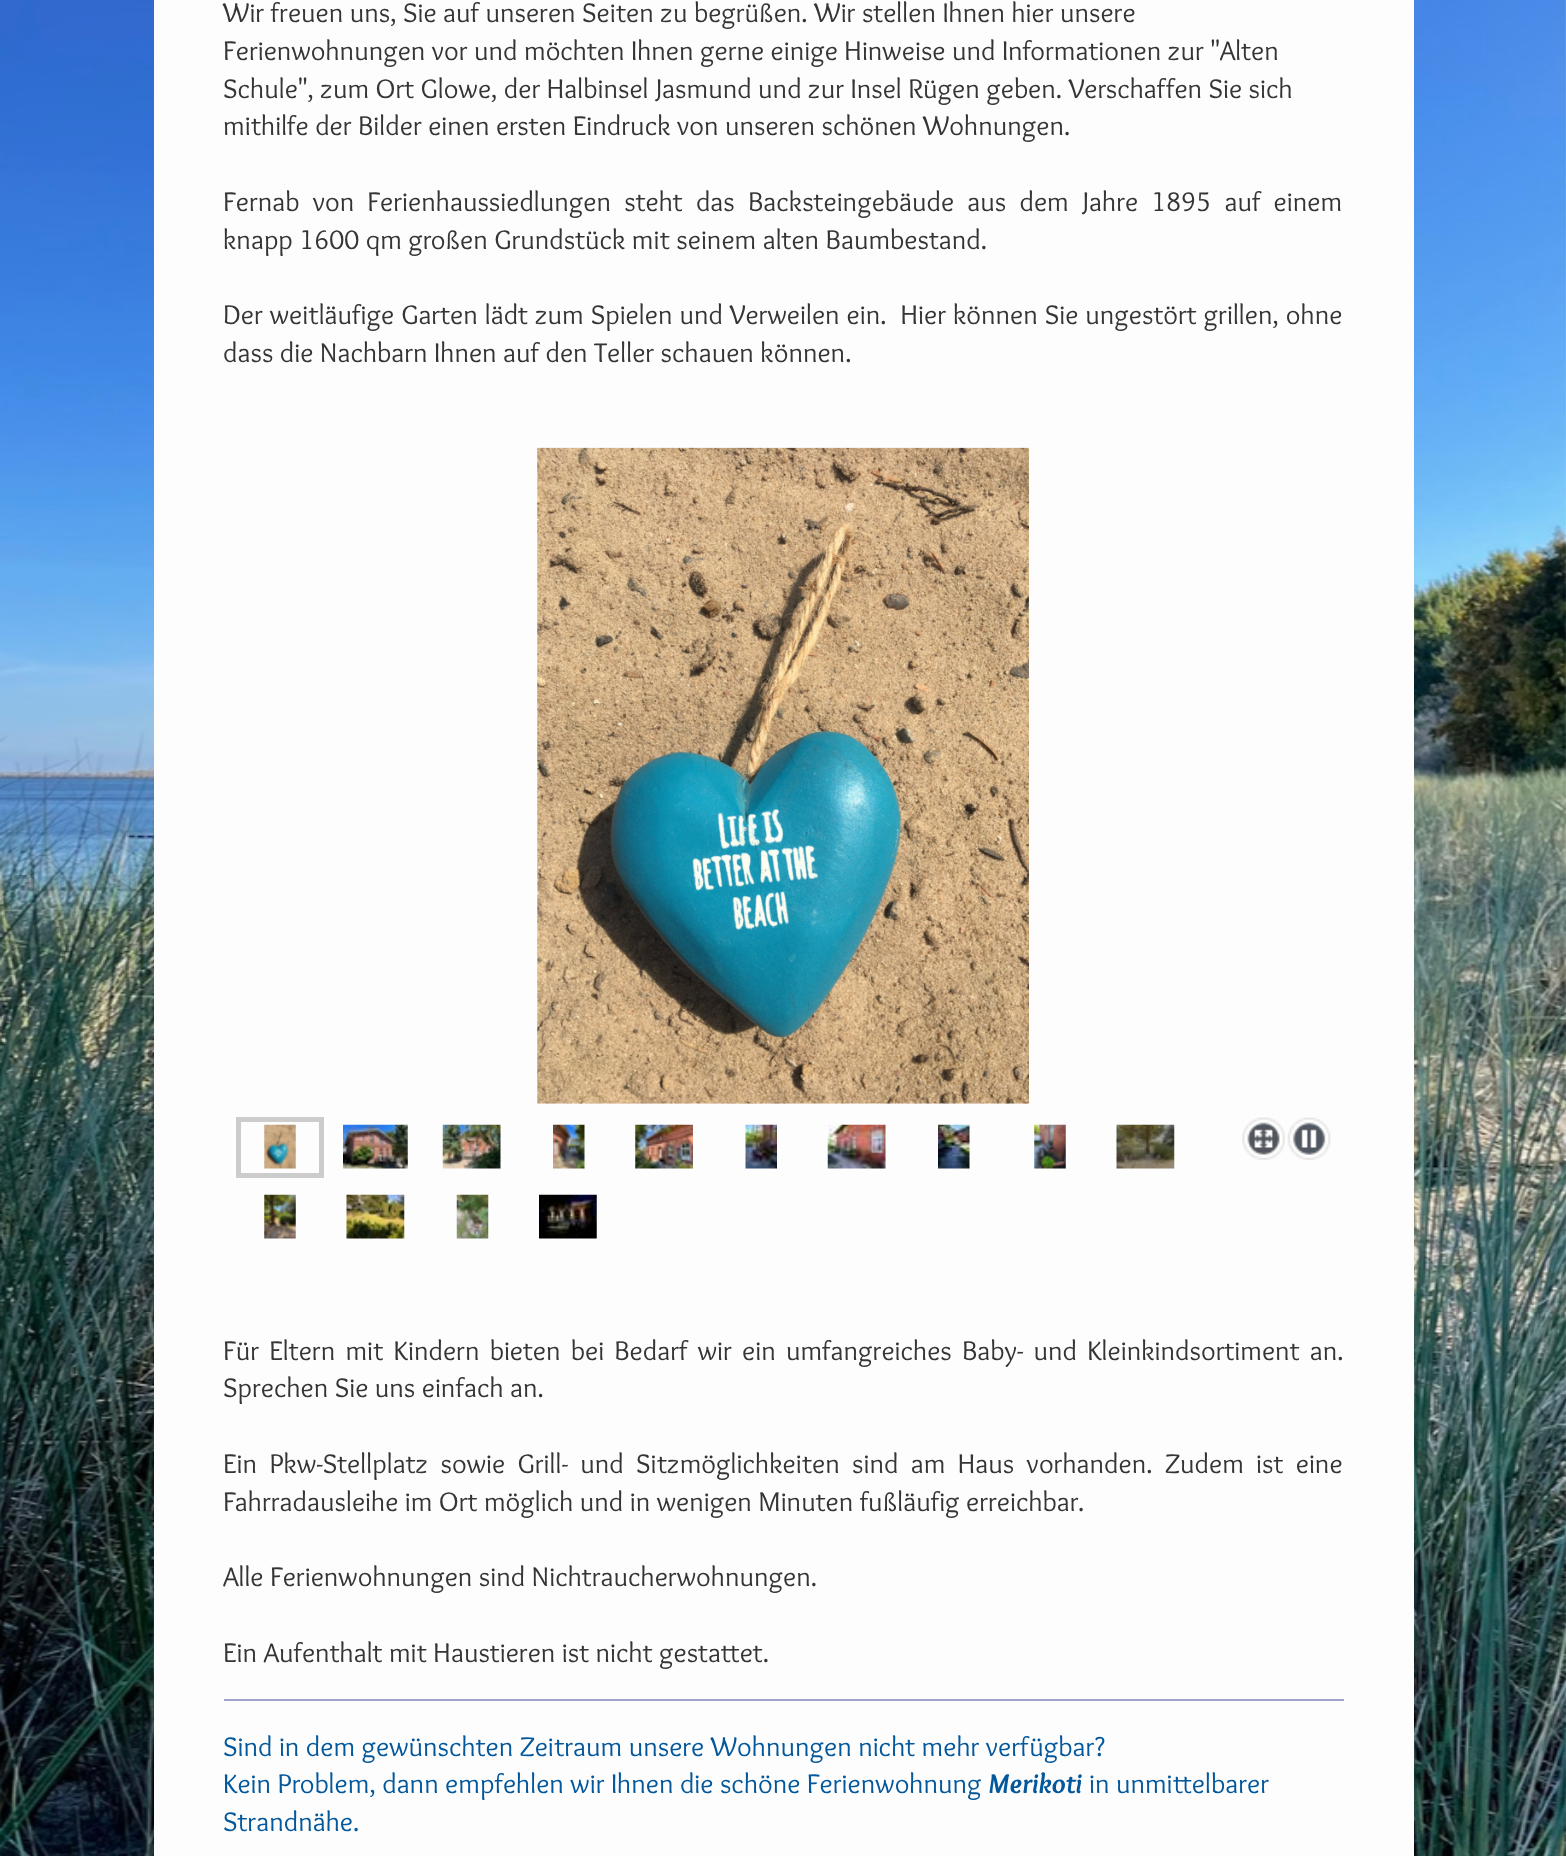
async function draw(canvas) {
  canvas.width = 1566;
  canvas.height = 1856;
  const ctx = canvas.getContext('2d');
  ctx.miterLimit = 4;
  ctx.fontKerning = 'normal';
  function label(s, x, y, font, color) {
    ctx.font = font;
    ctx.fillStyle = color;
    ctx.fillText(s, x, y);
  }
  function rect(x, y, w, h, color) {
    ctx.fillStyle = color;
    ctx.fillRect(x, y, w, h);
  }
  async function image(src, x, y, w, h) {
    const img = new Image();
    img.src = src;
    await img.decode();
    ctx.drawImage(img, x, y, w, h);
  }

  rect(0, 0, 1566, 1856, '#fff');
  await image('assets/img1.png', 0, 0, 1566, 1856);
  rect(154, 0, 1260, 1856, '#fdfdfe');
  label('Wir freuen uns, Sie auf unseren Seiten zu begrüßen. Wir stellen Ihnen hier unsere', 223, 22, '28px Overlock', '#353535');
  label('Ferienwohnungen vor und möchten Ihnen gerne einige Hinweise und Informationen zur "Alten', 223, 60, '28px Overlock', '#353535');
  label('Schule", zum Ort Glowe, der Halbinsel Jasmund und zur Insel Rügen geben. Verschaffen Sie sich', 223, 98, '28px Overlock', '#353535');
  label('mithilfe der Bilder einen ersten Eindruck von unseren schönen Wohnungen.', 223, 135, '28px Overlock', '#353535');
  ctx.wordSpacing = '6.75px';
  label('Fernab von Ferienhaussiedlungen steht das Backsteingebäude aus dem Jahre 1895 auf einem', 223, 211, '28px Overlock', '#353535');
  ctx.wordSpacing = '0px';
  label('knapp 1600 qm großen Grundstück mit seinem alten Baumbestand.', 223, 249, '28px Overlock', '#353535');
  ctx.wordSpacing = '0.5px';
  label('Der weitläufige Garten lädt zum Spielen und Verweilen ein.  Hier können Sie ungestört grillen, ohne', 223, 324, '28px Overlock', '#353535');
  ctx.wordSpacing = '0px';
  label('dass die Nachbarn Ihnen auf den Teller schauen können.', 223, 362, '28px Overlock', '#353535');
  await image('assets/img2.png', 537, 447, 492, 657);
  ctx.strokeStyle = '#ccc';
  ctx.lineWidth = 5;
  ctx.strokeRect(238.5, 1119.5, 83, 56);
  await image('assets/img3.png', 264, 1124, 32, 45);
  await image('assets/img4.png', 343, 1124, 65, 45);
  await image('assets/img5.png', 442, 1124, 59, 45);
  await image('assets/img6.png', 553, 1124, 32, 45);
  await image('assets/img7.png', 635, 1124, 58, 45);
  await image('assets/img8.png', 745, 1124, 32, 45);
  await image('assets/img9.png', 827, 1124, 59, 45);
  await image('assets/img10.png', 938, 1124, 32, 45);
  await image('assets/img11.png', 1034, 1124, 32, 45);
  await image('assets/img12.png', 1116, 1124, 59, 45);
  await image('assets/img13.png', 1242, 1117, 44, 43);
  await image('assets/img14.png', 1287, 1117, 44, 43);
  await image('assets/img15.png', 264, 1194, 32, 45);
  await image('assets/img16.png', 346, 1194, 59, 45);
  await image('assets/img17.png', 456, 1194, 33, 45);
  await image('assets/img18.png', 539, 1194, 58, 45);
  ctx.wordSpacing = '3.75px';
  label('Für Eltern mit Kindern bieten bei Bedarf wir ein umfangreiches Baby- und Kleinkindsortiment an.', 223, 1360, '28px Overlock', '#353535');
  ctx.wordSpacing = '0px';
  label('Sprechen Sie uns einfach an.', 223, 1397, '28px Overlock', '#353535');
  ctx.wordSpacing = '5.9px';
  label('Ein Pkw-Stellplatz sowie Grill- und Sitzmöglichkeiten sind am Haus vorhanden. Zudem ist eine', 223, 1473, '28px Overlock', '#353535');
  ctx.wordSpacing = '0px';
  label('Fahrradausleihe im Ort möglich und in wenigen Minuten fußläufig erreichbar.', 223, 1511, '28px Overlock', '#353535');
  label('Alle Ferienwohnungen sind Nichtraucherwohnungen.', 223, 1586, '28px Overlock', '#353535');
  label('Ein Aufenthalt mit Haustieren ist nicht gestattet.', 223, 1662, '28px Overlock', '#353535');
  rect(224, 1699, 1120, 2, '#a1a1d0');
  label('Sind in dem gewünschten Zeitraum unsere Wohnungen nicht mehr verfügbar?', 223, 1756, '28px Overlock', '#03579b');
  label('Kein Problem, dann empfehlen wir Ihnen die schöne Ferienwohnung', 223, 1793, '28px Overlock', '#03579b');
  label('Merikoti', 988, 1793, 'italic bold 28px Overlock', '#03579b');
  label('in unmittelbarer', 1089, 1793, '28px Overlock', '#03579b');
  label('Strandnähe.', 223, 1831, '28px Overlock', '#03579b');
}

draw(document.querySelector('canvas'));
